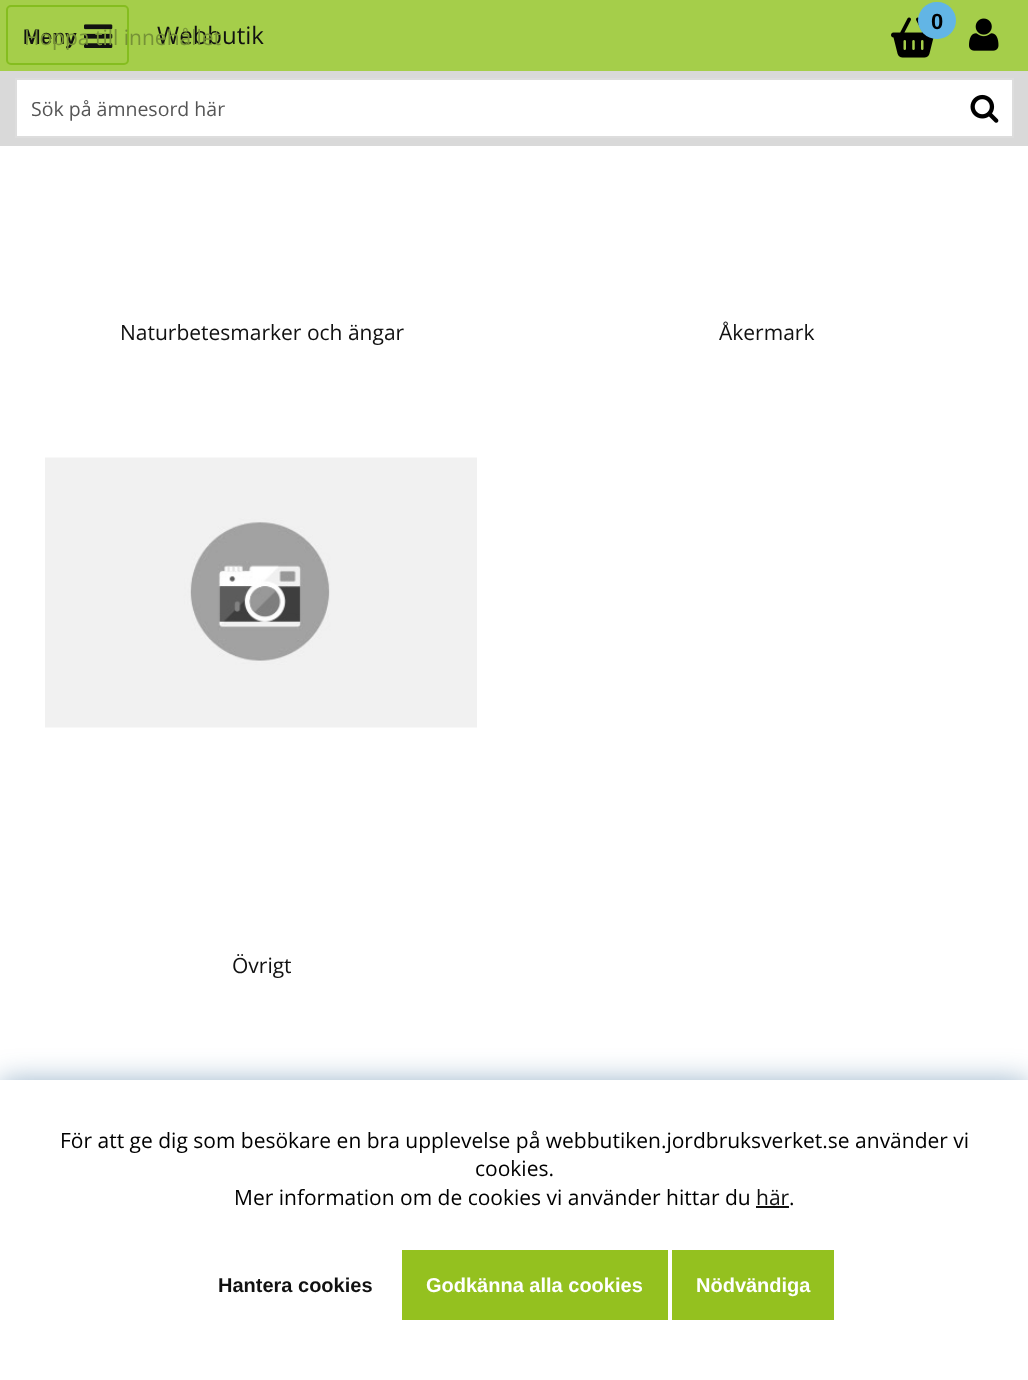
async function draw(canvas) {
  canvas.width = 1028;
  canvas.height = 1380;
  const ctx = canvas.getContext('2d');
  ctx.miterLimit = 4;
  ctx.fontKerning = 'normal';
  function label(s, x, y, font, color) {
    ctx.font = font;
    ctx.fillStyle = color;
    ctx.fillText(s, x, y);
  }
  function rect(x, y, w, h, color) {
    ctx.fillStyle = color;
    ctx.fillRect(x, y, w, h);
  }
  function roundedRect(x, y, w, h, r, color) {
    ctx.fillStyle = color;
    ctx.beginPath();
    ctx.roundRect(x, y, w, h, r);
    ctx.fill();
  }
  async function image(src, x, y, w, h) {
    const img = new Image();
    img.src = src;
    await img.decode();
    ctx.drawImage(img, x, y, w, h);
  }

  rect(0, 0, 1028, 1380, '#fff');
  rect(0, 0, 1028, 71, '#a5ce4a');
  ctx.beginPath();
  ctx.roundRect(7, 6, 121, 58, 4);
  ctx.strokeStyle = '#85bd1f';
  ctx.lineWidth = 2;
  ctx.stroke();
  label('Meny', 23, 44, 'bold 21px Liberation Sans', '#111');
  await image('assets/img1.png', 84, 24, 29, 24);
  label('Webbutik', 157, 44, '24px Open Sans', '#111');
  await image('assets/img2.png', 891, 17, 43, 41);
  roundedRect(918, 2, 38, 37, 18.5, '#62b5e5');
  label('0', 931, 29, 'bold 22px Liberation Sans', '#000');
  await image('assets/img3.png', 969, 18, 30, 33);
  label('Hoppa till innehållet', 24, 45, '21px Open Sans', '#769237');
  rect(0, 71, 1028, 75, '#d9d9d9');
  ctx.fillStyle = '#fff';
  ctx.beginPath();
  ctx.rect(16, 79, 997, 58);
  ctx.fill();
  ctx.strokeStyle = '#ddd';
  ctx.stroke();
  label('Sök på ämnesord här', 31, 116, '19.5px Open Sans', '#555');
  await image('assets/img4.png', 970, 94, 29, 29);
  label('Naturbetesmarker och ängar', 120, 340, '21px Open Sans', '#111');
  label('Åkermark', 719, 340, '21px Open Sans', '#111');
  await image('assets/img5.png', 45, 457, 432, 271);
  label('Övrigt', 232, 973, '21px Open Sans', '#111');
  ctx.fillStyle = '#00427a70';
  ctx.filter = 'blur(15px)';
  ctx.beginPath();
  ctx.rect(0, 1082, 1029, 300);
  ctx.fill();
  ctx.filter = 'none';
  rect(0, 1080, 1028, 300, '#fff');
  label('För att ge dig som besökare en bra upplevelse på webbutiken.jordbruksverket.se använder vi', 60, 1148, '21px Open Sans', '#000');
  label('cookies.', 475, 1176, '21px Open Sans', '#000');
  label('Mer information om de cookies vi använder hittar du', 234, 1205, '21px Open Sans', '#000');
  label('här', 756, 1205, '21px Open Sans', '#111');
  rect(756, 1206, 33, 2, '#111');
  label('.', 789, 1205, '21px Open Sans', '#000');
  label('Hantera cookies', 218, 1292, 'bold 20px Liberation Sans', '#111');
  rect(402, 1250, 266, 70, '#94c11f');
  label('Godkänna alla cookies', 426, 1292, 'bold 20px Liberation Sans', '#fff');
  rect(672, 1250, 162, 70, '#94c11f');
  label('Nödvändiga', 696, 1292, 'bold 20px Liberation Sans', '#fff');
}

draw(document.querySelector('canvas'));
